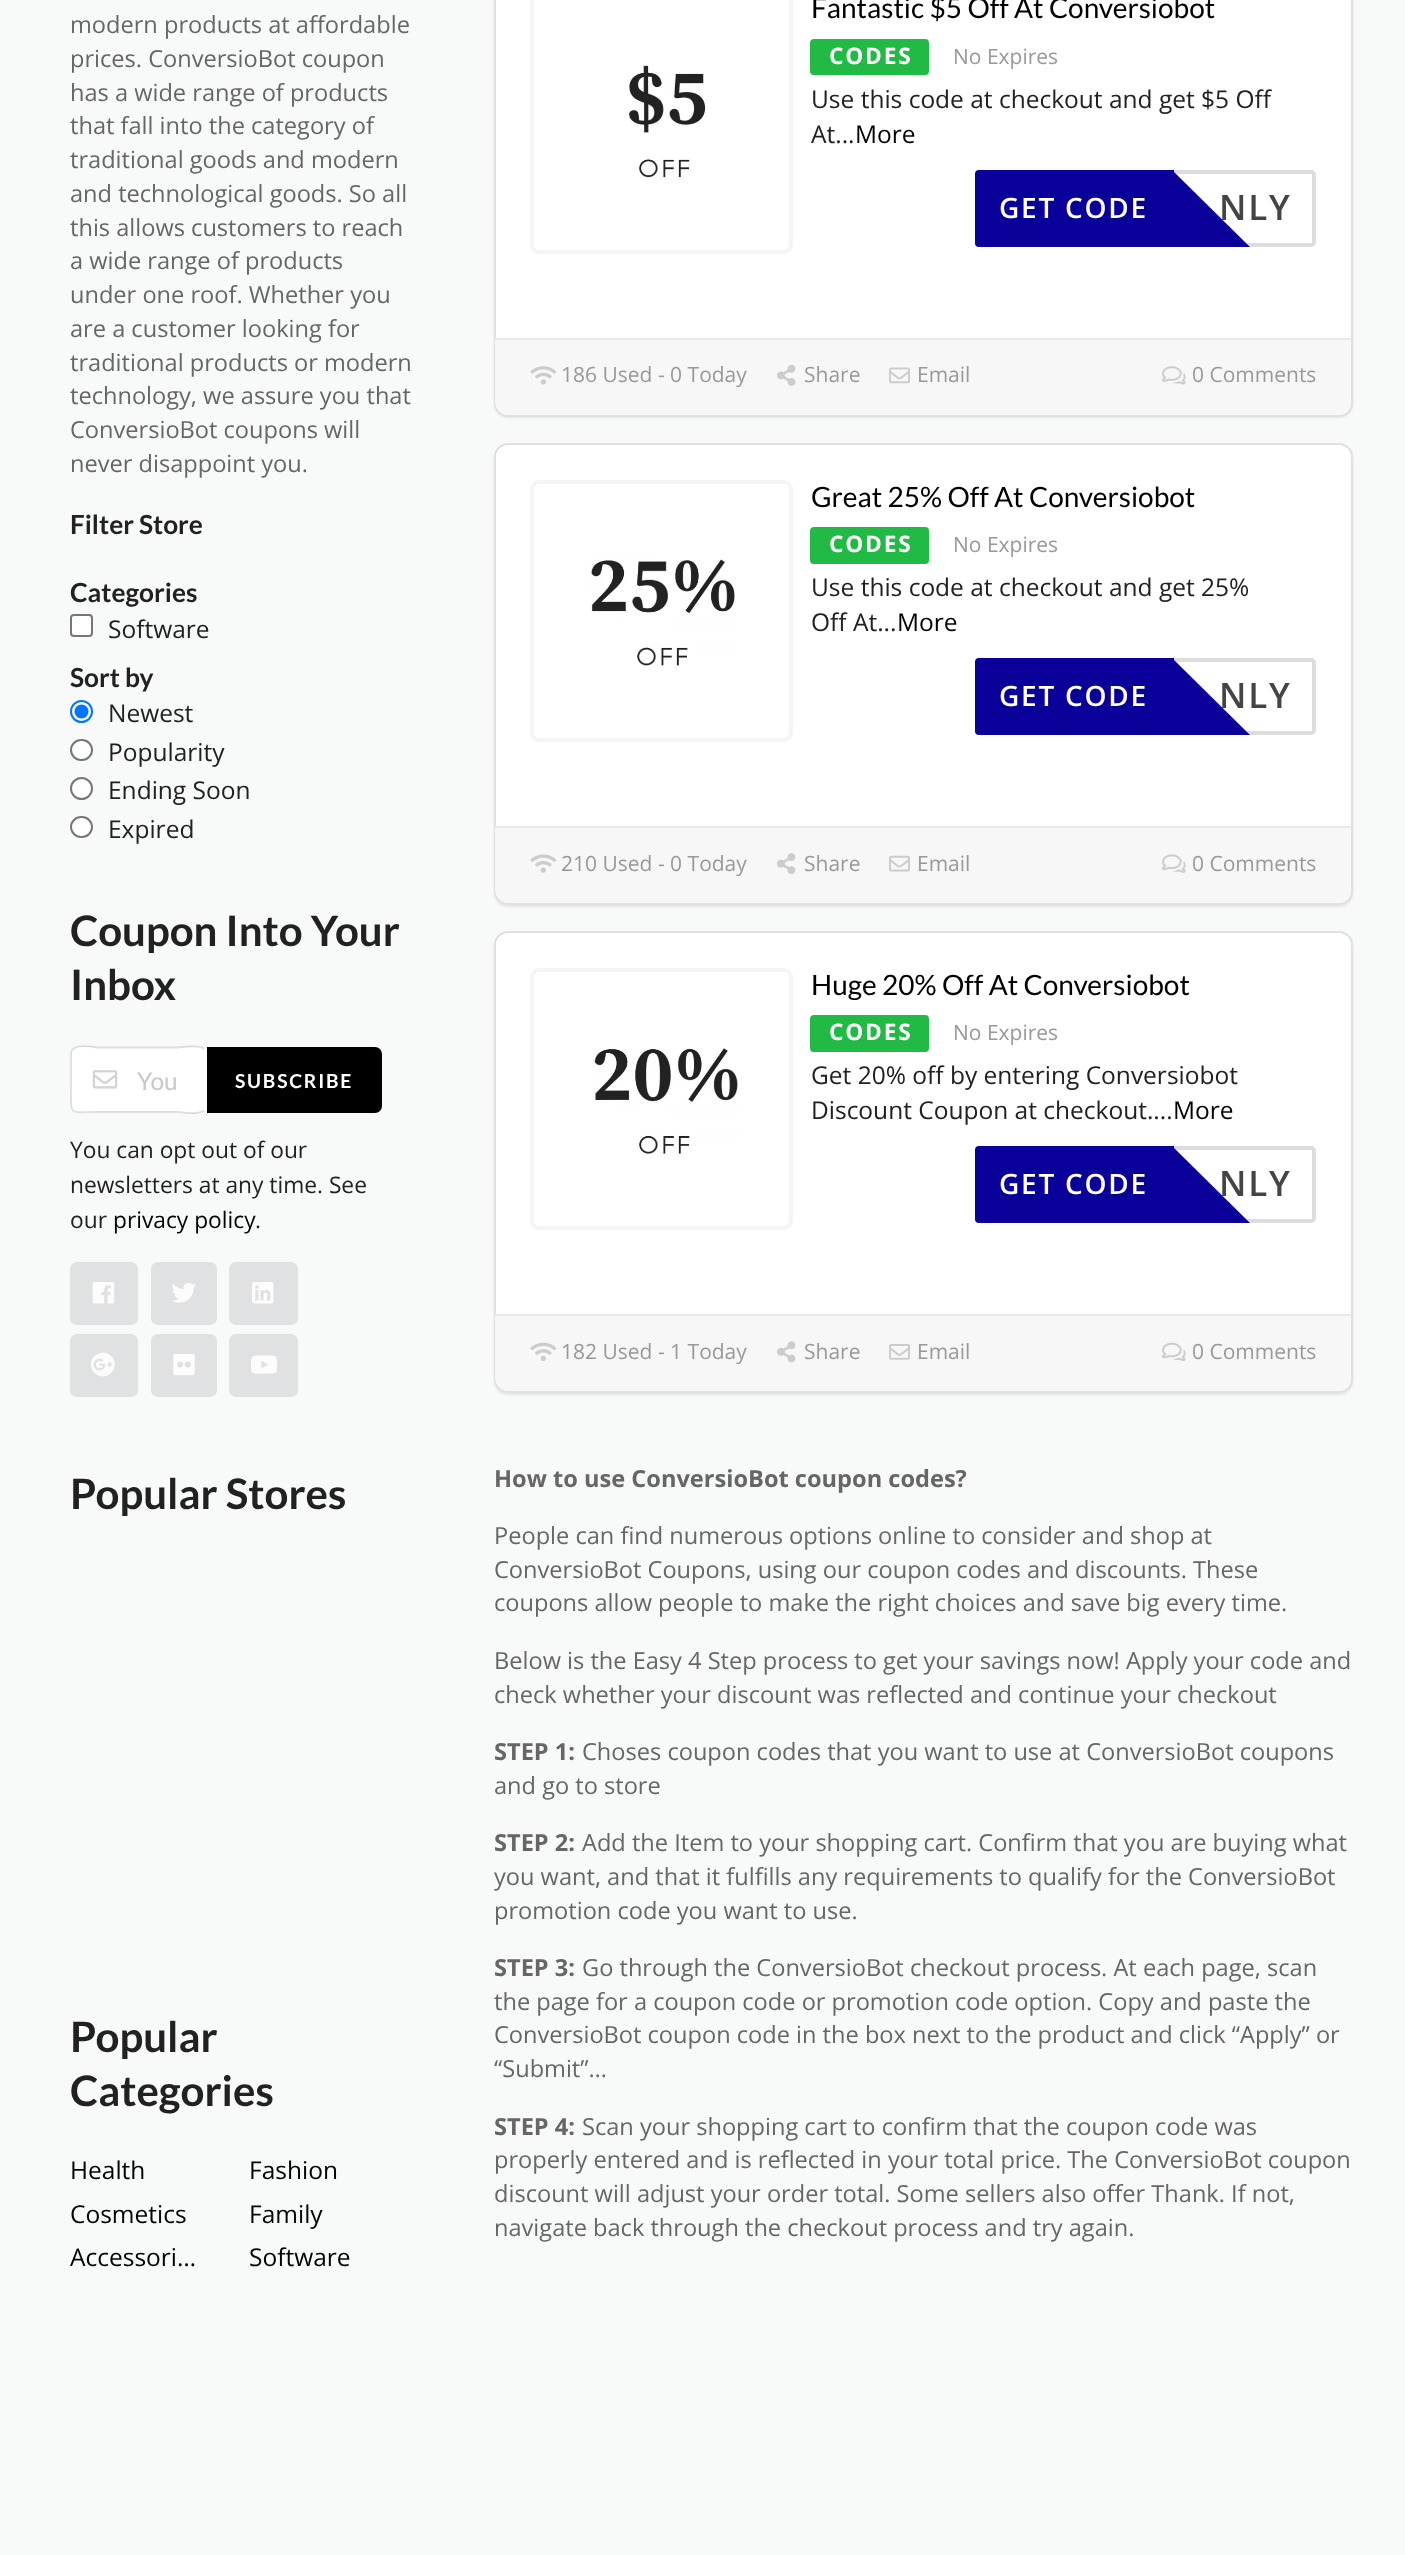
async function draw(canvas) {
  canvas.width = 1405;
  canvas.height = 2555;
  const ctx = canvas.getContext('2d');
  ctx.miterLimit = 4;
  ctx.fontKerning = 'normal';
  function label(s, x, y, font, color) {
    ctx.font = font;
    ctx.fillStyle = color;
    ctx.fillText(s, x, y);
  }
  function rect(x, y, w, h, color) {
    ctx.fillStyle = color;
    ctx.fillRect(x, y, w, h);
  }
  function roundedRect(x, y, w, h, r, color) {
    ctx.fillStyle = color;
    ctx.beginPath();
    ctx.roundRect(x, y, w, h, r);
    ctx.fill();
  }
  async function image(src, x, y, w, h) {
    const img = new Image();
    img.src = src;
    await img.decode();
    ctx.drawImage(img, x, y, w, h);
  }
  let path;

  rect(0, 0, 1405, 2555, '#f8f9f9');
  label('modern products at affordable', 70, 33, '23.6px Open Sans', '#666');
  label('prices. ConversioBot coupon', 70, 67, '23.6px Open Sans', '#666');
  label('has a wide range of products', 70, 101, '23.6px Open Sans', '#666');
  label('that fall into the category of', 70, 134, '23.6px Open Sans', '#666');
  label('traditional goods and modern', 70, 168, '23.6px Open Sans', '#666');
  label('and technological goods. So all', 70, 202, '23.6px Open Sans', '#666');
  label('this allows customers to reach', 70, 236, '23.6px Open Sans', '#666');
  label('a wide range of products', 70, 269, '23.6px Open Sans', '#666');
  label('under one roof. Whether you', 70, 303, '23.6px Open Sans', '#666');
  label('are a customer looking for', 70, 337, '23.6px Open Sans', '#666');
  label('traditional products or modern', 70, 371, '23.6px Open Sans', '#666');
  label('technology, we assure you that', 70, 404, '23.6px Open Sans', '#666');
  label('ConversioBot coupons will', 70, 438, '23.6px Open Sans', '#666');
  label('never disappoint you.', 70, 472, '23.6px Open Sans', '#666');
  label('Filter Store', 70, 534, 'bold 26.25px Lato', '#212121');
  label('Categories', 70, 602, 'bold 26.25px Lato', '#212121');
  ctx.fillStyle = '#fff';
  ctx.beginPath();
  ctx.roundRect(71, 615, 21, 21, 3);
  ctx.fill();
  ctx.strokeStyle = '#767676';
  ctx.lineWidth = 2;
  ctx.stroke();
  label('Software', 108, 638, '24.5px Open Sans', '#212121');
  label('Sort by', 70, 687, 'bold 26.25px Lato', '#212121');
  ctx.fillStyle = '#fff';
  ctx.beginPath();
  ctx.arc(81.5, 711.5, 10.5, 0, 2 * Math.PI);
  ctx.fill();
  ctx.strokeStyle = '#0075ff';
  ctx.stroke();
  ctx.fillStyle = '#0075ff';
  ctx.beginPath();
  ctx.arc(81.5, 711.5, 7, 0, 2 * Math.PI);
  ctx.fill();
  label('Newest', 108, 722, '24.5px Open Sans', '#212121');
  ctx.fillStyle = '#fff';
  ctx.beginPath();
  ctx.roundRect(71, 740, 21, 20, 10);
  ctx.fill();
  ctx.strokeStyle = '#767676';
  ctx.stroke();
  label('Popularity', 108, 761, '24.5px Open Sans', '#212121');
  ctx.fillStyle = '#fff';
  ctx.beginPath();
  ctx.arc(81.5, 788.5, 10.5, 0, 2 * Math.PI);
  ctx.fill();
  ctx.stroke();
  label('Ending Soon', 108, 799, '24.5px Open Sans', '#212121');
  ctx.fillStyle = '#fff';
  ctx.beginPath();
  ctx.roundRect(71, 817, 21, 20, 10);
  ctx.fill();
  ctx.stroke();
  label('Expired', 108, 838, '24.5px Open Sans', '#212121');
  label('Coupon Into Your', 70, 946, 'bold 42px Lato', '#212121');
  label('Inbox', 70, 1000, 'bold 42px Lato', '#212121');
  roundedRect(70, 1047, 137, 66, 7, '#fff');
  path = new Path2D('M204 1110.5C199 1115 179.5 1112 179 1112H97.5C68 1112 71 1116.5 71 1088.5V1052.5C73 1042.5 96.5 1047.5 97.5 1047.5H179C179.5 1047.5 199 1044.5 204 1049');
  ctx.strokeStyle = '#22242626';
  ctx.lineWidth = 1.8;
  ctx.stroke(path);
  await image('assets/img1.png', 92, 1070, 26, 19);
  label('You', 137, 1090, '24.5px Lato', '#c7c7c7');
  ctx.fillStyle = '#000';
  ctx.beginPath();
  ctx.roundRect(207, 1047, 175, 66, [0, 7, 7, 0]);
  ctx.fill();
  ctx.letterSpacing = '1.75px';
  label('SUBSCRIBE', 235, 1088, 'bold 19.25px Lato', '#fff');
  ctx.letterSpacing = '0px';
  label('You can opt out of our', 70, 1158, '22.75px Open Sans', '#212121');
  label('newsletters at any time. See', 70, 1193, '22.75px Open Sans', '#212121');
  label('our', 70, 1228, '22.75px Open Sans', '#212121');
  label('privacy policy', 113, 1228, '22.75px Open Sans', '#000');
  label('.', 255, 1228, '22.75px Open Sans', '#212121');
  roundedRect(70, 1262, 68, 63, 7, '#e0e1e2');
  await image('assets/img2.png', 92, 1282, 23, 22);
  roundedRect(151, 1262, 66, 63, 7, '#e0e1e2');
  await image('assets/img3.png', 172, 1283, 24, 20);
  roundedRect(229, 1262, 69, 63, 7, '#e0e1e2');
  await image('assets/img4.png', 252, 1282, 22, 22);
  roundedRect(70, 1334, 68, 63, 7, '#e0e1e2');
  await image('assets/img5.png', 91, 1352, 24, 25);
  roundedRect(151, 1334, 66, 63, 7, '#e0e1e2');
  await image('assets/img6.png', 173, 1354, 22, 22);
  roundedRect(229, 1334, 69, 63, 7, '#e0e1e2');
  await image('assets/img7.png', 251, 1355, 26, 19);
  label('Popular Stores', 70, 1509, 'bold 42px Lato', '#212121');
  label('Popular', 70, 2052, 'bold 42px Lato', '#212121');
  label('Categories', 70, 2106, 'bold 42px Lato', '#212121');
  label('Health', 70, 2179, '24.5px Open Sans', '#000');
  label('Fashion', 249, 2179, '24.5px Open Sans', '#000');
  label('Cosmetics', 70, 2223, '24.5px Open Sans', '#000');
  label('Family', 249, 2223, '24.5px Open Sans', '#000');
  label('Accessori…', 70, 2266, '24.5px Open Sans', '#000');
  label('Software', 249, 2266, '24.5px Open Sans', '#000');
  ctx.fillStyle = '#00000014';
  ctx.filter = 'blur(1px)';
  ctx.beginPath();
  ctx.roundRect(494, -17, 859, 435, 14);
  ctx.fill();
  ctx.filter = 'none';
  ctx.fillStyle = '#fff';
  ctx.beginPath();
  ctx.roundRect(495, -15, 857, 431, 13);
  ctx.fill();
  ctx.strokeStyle = '#e0e0e0';
  ctx.lineWidth = 2;
  ctx.stroke();
  ctx.beginPath();
  ctx.roundRect(532, -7, 259, 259, 7);
  ctx.strokeStyle = '#f5f5f5';
  ctx.lineWidth = 4;
  ctx.stroke();
  await image('assets/img8.png', 628, 65, 78, 113);
  label('Fantastic $5 Off At Conversiobot', 811, 18, '28px Lato', '#000');
  roundedRect(810, 39, 119, 36, 4, '#21ba45');
  ctx.letterSpacing = '1.75px';
  label('CODES', 829, 64, 'bold 22.75px Open Sans', '#fff');
  ctx.letterSpacing = '0px';
  label('No Expires', 953, 64, '21px Open Sans', '#999');
  label('Use this code at checkout and get $5 Off', 811, 108, '24.5px Open Sans', '#212121');
  label('At...', 811, 143, '24.5px Open Sans', '#212121');
  label('More', 855, 143, '24.5px Open Sans', '#000');
  ctx.beginPath();
  ctx.roundRect(977, 172, 337, 73, 3);
  ctx.strokeStyle = '#ddd';
  ctx.stroke();
  ctx.fillStyle = '#0a0099';
  ctx.beginPath();
  ctx.roundRect(975, 170, 199, 77, [4, 0, 0, 4]);
  ctx.fill();
  ctx.letterSpacing = '1.75px';
  label('GET CODE', 999, 218, '600 28px Open Sans', '#fff');
  label('NLY', 1219, 220, '600 35px Open Sans', '#444');
  ctx.fillStyle = '#0a0099';
  path = new Path2D('M1172 247V170L1250 247Z');
  ctx.fill(path);
  ctx.fillStyle = '#f7f7f7';
  ctx.beginPath();
  ctx.roundRect(495, 338, 856, 77, [0, 0, 14, 14]);
  ctx.fill();
  rect(495, 338, 856, 2, '#e9e9e9');
  await image('assets/img9.png', 530, 366, 27, 19);
  ctx.letterSpacing = '0px';
  label('186 Used - 0 Today', 561, 382, '21px Open Sans', '#999');
  await image('assets/img10.png', 777, 364, 19, 22);
  label('Share', 804, 382, '21px Open Sans', '#999');
  await image('assets/img11.png', 889, 367, 21, 17);
  label('Email', 917, 382, '21px Open Sans', '#999');
  await image('assets/img12.png', 1162, 366, 24, 19);
  label('0 Comments', 1192, 382, '21px Open Sans', '#999');
  ctx.fillStyle = '#00000014';
  ctx.filter = 'blur(1px)';
  ctx.beginPath();
  ctx.roundRect(494, 445, 859, 462, 14);
  ctx.fill();
  ctx.filter = 'none';
  ctx.fillStyle = '#fff';
  ctx.beginPath();
  ctx.roundRect(495, 444, 857, 460, 13);
  ctx.fill();
  ctx.strokeStyle = '#e0e0e0';
  ctx.lineWidth = 2;
  ctx.stroke();
  ctx.beginPath();
  ctx.roundRect(532, 482, 259, 258, 7);
  ctx.strokeStyle = '#f5f5f5';
  ctx.lineWidth = 4;
  ctx.stroke();
  await image('assets/img13.png', 591, 559, 145, 107);
  label('Great 25% Off At Conversiobot', 811, 507, '28px Lato', '#000');
  roundedRect(810, 527, 119, 37, 4, '#21ba45');
  ctx.letterSpacing = '1.75px';
  label('CODES', 829, 552, 'bold 22.75px Open Sans', '#fff');
  ctx.letterSpacing = '0px';
  label('No Expires', 953, 552, '21px Open Sans', '#999');
  label('Use this code at checkout and get 25%', 811, 596, '24.5px Open Sans', '#212121');
  label('Off At...', 811, 631, '24.5px Open Sans', '#212121');
  label('More', 897, 631, '24.5px Open Sans', '#000');
  ctx.beginPath();
  ctx.roundRect(977, 660, 337, 73, 3);
  ctx.strokeStyle = '#ddd';
  ctx.stroke();
  ctx.fillStyle = '#0a0099';
  ctx.beginPath();
  ctx.roundRect(975, 658, 199, 77, [4, 0, 0, 4]);
  ctx.fill();
  ctx.letterSpacing = '1.75px';
  label('GET CODE', 999, 706, '600 28px Open Sans', '#fff');
  label('NLY', 1219, 708, '600 35px Open Sans', '#444');
  ctx.fillStyle = '#0a0099';
  path = new Path2D('M1172 735V658L1250 735Z');
  ctx.fill(path);
  ctx.fillStyle = '#f7f7f7';
  ctx.beginPath();
  ctx.roundRect(495, 826, 856, 77, [0, 0, 14, 14]);
  ctx.fill();
  rect(495, 826, 856, 2, '#e9e9e9');
  await image('assets/img14.png', 530, 854, 27, 19);
  ctx.letterSpacing = '0px';
  label('210 Used - 0 Today', 561, 871, '21px Open Sans', '#999');
  await image('assets/img15.png', 777, 853, 19, 22);
  label('Share', 804, 871, '21px Open Sans', '#999');
  await image('assets/img16.png', 889, 855, 21, 17);
  label('Email', 917, 871, '21px Open Sans', '#999');
  await image('assets/img17.png', 1162, 854, 24, 19);
  label('0 Comments', 1192, 871, '21px Open Sans', '#999');
  ctx.fillStyle = '#00000014';
  ctx.filter = 'blur(1px)';
  ctx.beginPath();
  ctx.roundRect(494, 933, 859, 462, 14);
  ctx.fill();
  ctx.filter = 'none';
  ctx.fillStyle = '#fff';
  ctx.beginPath();
  ctx.roundRect(495, 932, 857, 460, 13);
  ctx.fill();
  ctx.strokeStyle = '#e0e0e0';
  ctx.lineWidth = 2;
  ctx.stroke();
  ctx.beginPath();
  ctx.roundRect(532, 970, 259, 258, 7);
  ctx.strokeStyle = '#f5f5f5';
  ctx.lineWidth = 4;
  ctx.stroke();
  await image('assets/img18.png', 593, 1048, 145, 106);
  label('Huge 20% Off At Conversiobot', 811, 995, '28px Lato', '#000');
  roundedRect(810, 1015, 119, 37, 4, '#21ba45');
  ctx.letterSpacing = '1.75px';
  label('CODES', 829, 1040, 'bold 22.75px Open Sans', '#fff');
  ctx.letterSpacing = '0px';
  label('No Expires', 953, 1040, '21px Open Sans', '#999');
  label('Get 20% off by entering Conversiobot', 811, 1084, '24.5px Open Sans', '#212121');
  label('Discount Coupon at checkout....', 811, 1119, '24.5px Open Sans', '#212121');
  label('More', 1173, 1119, '24.5px Open Sans', '#000');
  ctx.beginPath();
  ctx.roundRect(977, 1148, 337, 73, 3);
  ctx.strokeStyle = '#ddd';
  ctx.stroke();
  ctx.fillStyle = '#0a0099';
  ctx.beginPath();
  ctx.roundRect(975, 1146, 199, 77, [4, 0, 0, 4]);
  ctx.fill();
  ctx.letterSpacing = '1.75px';
  label('GET CODE', 999, 1194, '600 28px Open Sans', '#fff');
  label('NLY', 1219, 1196, '600 35px Open Sans', '#444');
  ctx.fillStyle = '#0a0099';
  path = new Path2D('M1172 1223V1146L1250 1223Z');
  ctx.fill(path);
  ctx.fillStyle = '#f7f7f7';
  ctx.beginPath();
  ctx.roundRect(495, 1314, 856, 77, [0, 0, 14, 14]);
  ctx.fill();
  rect(495, 1314, 856, 2, '#e9e9e9');
  await image('assets/img19.png', 530, 1342, 27, 19);
  ctx.letterSpacing = '0px';
  label('182 Used - 1 Today', 561, 1359, '21px Open Sans', '#999');
  await image('assets/img20.png', 777, 1341, 19, 22);
  label('Share', 804, 1359, '21px Open Sans', '#999');
  await image('assets/img21.png', 889, 1344, 21, 16);
  label('Email', 917, 1359, '21px Open Sans', '#999');
  await image('assets/img22.png', 1162, 1342, 24, 19);
  label('0 Comments', 1192, 1359, '21px Open Sans', '#999');
  label('How to use ConversioBot coupon codes?', 494, 1487, 'bold 23.6px Open Sans', '#666');
  label('People can find numerous options online to consider and shop at', 494, 1544, '23.6px Open Sans', '#666');
  label('ConversioBot Coupons, using our coupon codes and discounts. These', 494, 1578, '23.6px Open Sans', '#666');
  label('coupons allow people to make the right choices and save big every time.', 494, 1611, '23.6px Open Sans', '#666');
  label('Below is the Easy 4 Step process to get your savings now! Apply your code and', 494, 1669, '23.6px Open Sans', '#666');
  label('check whether your discount was reflected and continue your checkout', 494, 1703, '23.6px Open Sans', '#666');
  label('STEP 1:', 494, 1760, 'bold 23.6px Open Sans', '#666');
  label('Choses coupon codes that you want to use at ConversioBot coupons', 582, 1760, '23.6px Open Sans', '#666');
  label('and go to store', 494, 1794, '23.6px Open Sans', '#666');
  label('STEP 2:', 494, 1851, 'bold 23.6px Open Sans', '#666');
  label('Add the Item to your shopping cart. Confirm that you are buying what', 582, 1851, '23.6px Open Sans', '#666');
  label('you want, and that it fulfills any requirements to qualify for the ConversioBot', 494, 1885, '23.6px Open Sans', '#666');
  label('promotion code you want to use.', 494, 1919, '23.6px Open Sans', '#666');
  label('STEP 3:', 494, 1976, 'bold 23.6px Open Sans', '#666');
  label('Go through the ConversioBot checkout process. At each page, scan', 582, 1976, '23.6px Open Sans', '#666');
  label('the page for a coupon code or promotion code option. Copy and paste the', 494, 2010, '23.6px Open Sans', '#666');
  label('ConversioBot coupon code in the box next to the product and click “Apply” or', 494, 2043, '23.6px Open Sans', '#666');
  label('“Submit”…', 494, 2077, '23.6px Open Sans', '#666');
  label('STEP 4:', 494, 2135, 'bold 23.6px Open Sans', '#666');
  label('Scan your shopping cart to confirm that the coupon code was', 582, 2135, '23.6px Open Sans', '#666');
  label('properly entered and is reflected in your total price. The ConversioBot coupon', 494, 2168, '23.6px Open Sans', '#666');
  label('discount will adjust your order total. Some sellers also offer Thank. If not,', 494, 2202, '23.6px Open Sans', '#666');
  label('navigate back through the checkout process and try again.', 494, 2236, '23.6px Open Sans', '#666');
}

draw(document.querySelector('canvas'));
